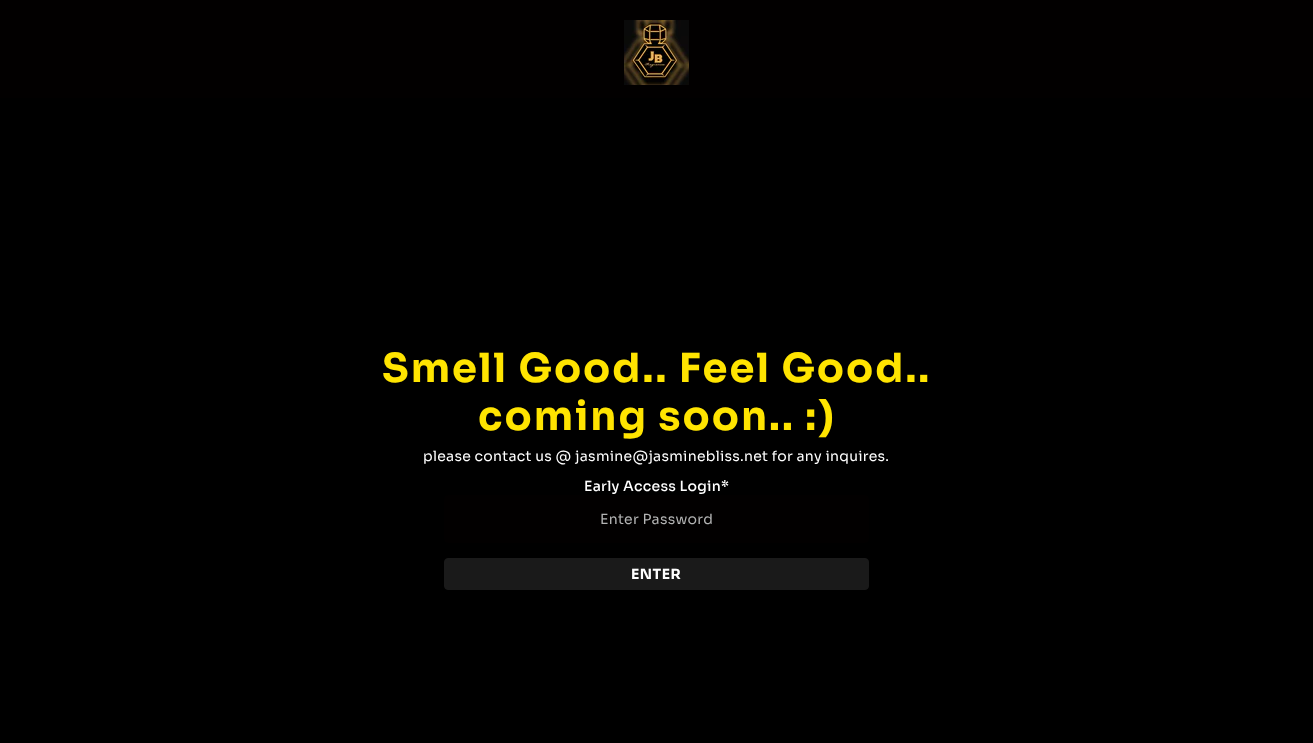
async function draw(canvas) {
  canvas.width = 1313;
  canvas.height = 743;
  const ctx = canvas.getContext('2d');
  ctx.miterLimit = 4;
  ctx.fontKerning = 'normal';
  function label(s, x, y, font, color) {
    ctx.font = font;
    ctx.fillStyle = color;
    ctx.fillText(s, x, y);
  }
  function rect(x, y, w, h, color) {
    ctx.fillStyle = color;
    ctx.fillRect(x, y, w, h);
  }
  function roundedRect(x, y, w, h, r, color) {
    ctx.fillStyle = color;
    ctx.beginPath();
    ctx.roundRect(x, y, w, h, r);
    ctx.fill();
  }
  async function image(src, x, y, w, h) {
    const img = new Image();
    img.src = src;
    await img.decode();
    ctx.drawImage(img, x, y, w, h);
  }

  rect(0, 0, 1313, 743, '#020000');
  await image('assets/img1.png', 624, 20, 65, 65);
  await image('assets/img2.png', 0, 98, 1313, 645);
  ctx.letterSpacing = '2px';
  label('Smell Good.. Feel Good..', 382, 382, 'bold 40px Sora', '#ffe400');
  label('coming soon.. :)', 478, 430, 'bold 40px Sora', '#ffe400');
  ctx.letterSpacing = '0.28px';
  label('please contact us @ jasmine@jasminebliss.net for any inquires.', 423, 461, '14px Sora', '#fff');
  label('Early Access Login*', 584, 491, '500 14px Sora', '#fff');
  roundedRect(444, 495, 425, 48, 4, '#020000');
  label('Enter Password', 600, 524, '14px Sora', '#b3b3b3');
  ctx.fillStyle = '#1a1a1a';
  ctx.beginPath();
  ctx.roundRect(444.5, 558.5, 424, 31, 3.5);
  ctx.fill();
  ctx.strokeStyle = '#1a1a1a';
  ctx.stroke();
  ctx.letterSpacing = '0.5px';
  label('ENTER', 631, 579, 'bold 14px Sora', '#fff');
}

draw(document.querySelector('canvas'));
